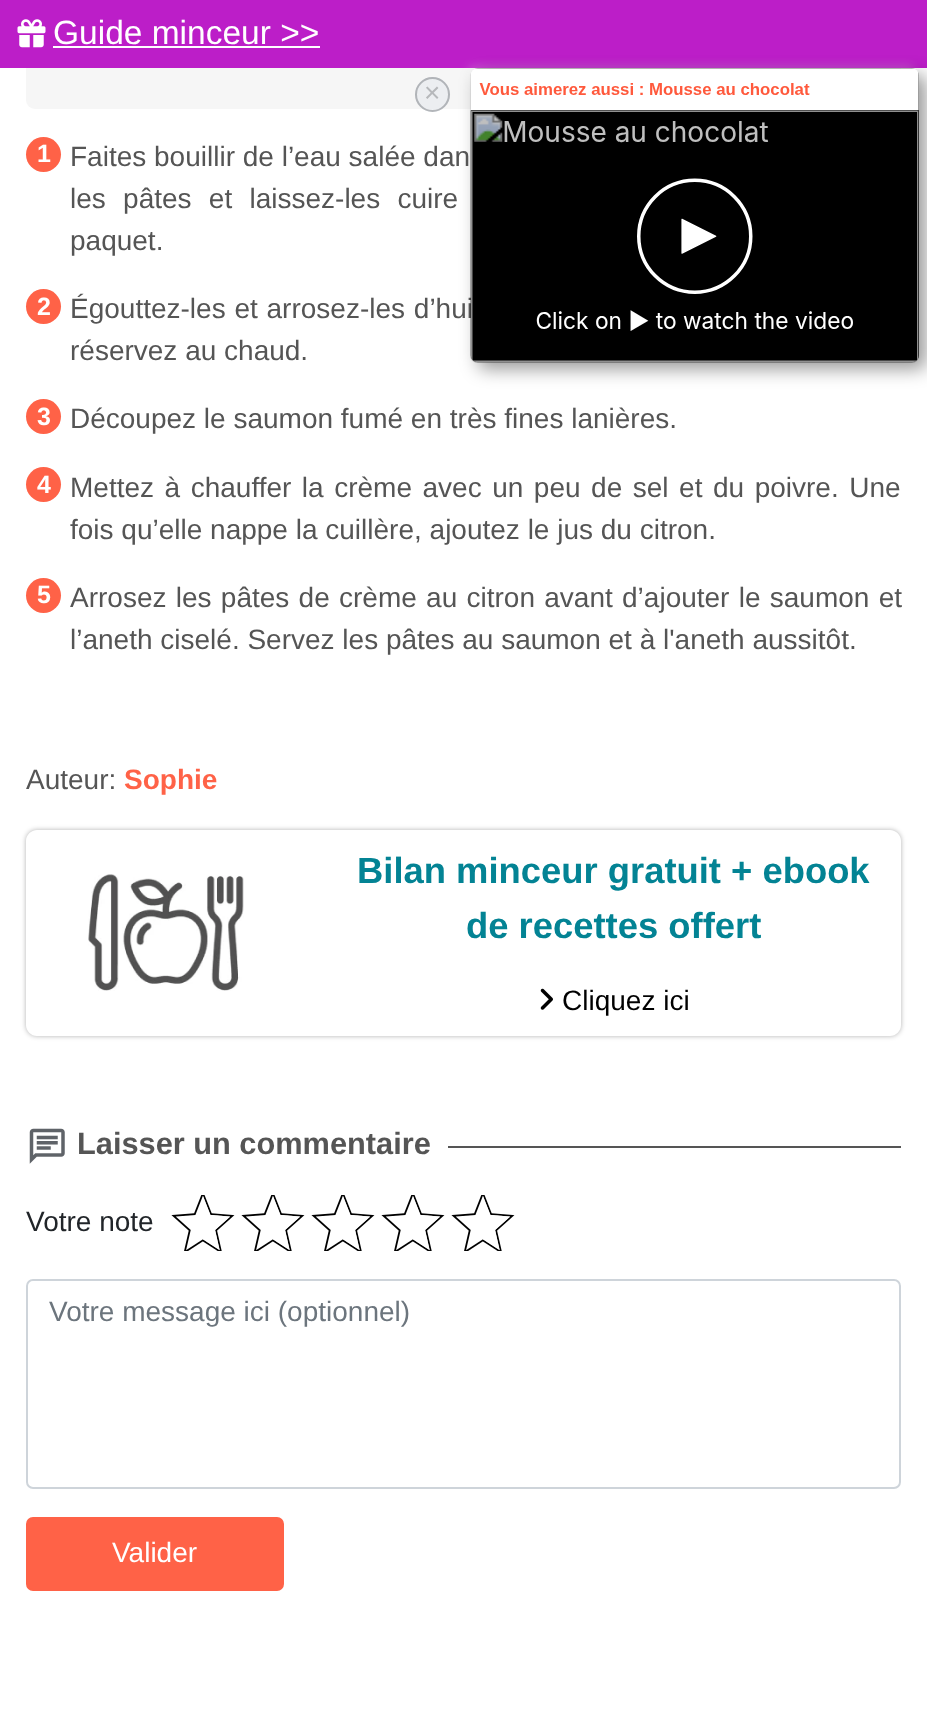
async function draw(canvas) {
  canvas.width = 927;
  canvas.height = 1734;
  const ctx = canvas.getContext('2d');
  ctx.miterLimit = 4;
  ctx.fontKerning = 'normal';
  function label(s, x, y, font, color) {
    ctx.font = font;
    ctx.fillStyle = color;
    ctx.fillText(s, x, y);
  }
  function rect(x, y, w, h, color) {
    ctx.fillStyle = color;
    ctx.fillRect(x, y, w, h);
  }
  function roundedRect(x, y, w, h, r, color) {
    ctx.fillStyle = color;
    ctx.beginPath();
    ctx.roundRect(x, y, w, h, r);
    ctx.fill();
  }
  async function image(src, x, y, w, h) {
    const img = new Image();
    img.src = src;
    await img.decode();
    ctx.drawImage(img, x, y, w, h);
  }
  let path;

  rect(0, 0, 927, 1734, '#fff');
  roundedRect(26, 14, 875, 95, 9, '#f6f6f6');
  rect(0, 0, 927, 68, '#bc1ec8');
  await image('assets/img1.png', 17, 19, 29, 29);
  label('Guide minceur >>', 53, 44, '33.5px Liberation Sans', '#fff');
  rect(53, 46, 267, 2, '#fff');
  ctx.fillStyle = '#ffffff33';
  ctx.filter = 'blur(5px)';
  ctx.beginPath();
  ctx.roundRect(467, 65, 448, 294, 7);
  ctx.fill();
  ctx.filter = 'none';
  ctx.fillStyle = '#00000066';
  ctx.filter = 'blur(9px)';
  ctx.beginPath();
  ctx.roundRect(478, 75, 448, 294, 7);
  ctx.fill();
  ctx.filter = 'none';
  ctx.fillStyle = '#e2e6eb80';
  ctx.beginPath();
  ctx.arc(432.5, 94.5, 17.5, 0, 2 * Math.PI);
  ctx.fill();
  ctx.beginPath();
  ctx.arc(432.5, 94.5, 16.5, 0, 2 * Math.PI);
  ctx.strokeStyle = '#767a7f80';
  ctx.lineWidth = 2;
  ctx.stroke();
  label('×', 424, 102, '28px Liberation Sans', '#b6b8bb');
  ctx.wordSpacing = '1px';
  label('Égouttez-les et arrosez-les d’hui', 70, 318, '28px Liberation Sans', '#555');
  await image('assets/img2.png', 470, 68, 449, 295);
  ctx.fillStyle = '#ff6247';
  ctx.beginPath();
  ctx.arc(43.5, 154.5, 17.5, 0, 2 * Math.PI);
  ctx.fill();
  ctx.wordSpacing = '0px';
  label('1', 37, 162, 'bold 25px Liberation Sans', '#fff');
  label('Faites bouillir de l’eau salée dan', 70, 166, '28px Liberation Sans', '#555');
  ctx.wordSpacing = '9.5px';
  label('les pâtes et laissez-les cuire', 70, 208, '28px Liberation Sans', '#555');
  ctx.wordSpacing = '0px';
  label('paquet.', 70, 250, '28px Liberation Sans', '#555');
  ctx.fillStyle = '#ff6247';
  ctx.beginPath();
  ctx.arc(43.5, 306.5, 17.5, 0, 2 * Math.PI);
  ctx.fill();
  label('2', 37, 315, 'bold 25px Liberation Sans', '#fff');
  label('réservez au chaud.', 70, 360, '28px Liberation Sans', '#555');
  ctx.fillStyle = '#ff6247';
  ctx.beginPath();
  ctx.arc(43.5, 416.5, 17.5, 0, 2 * Math.PI);
  ctx.fill();
  label('3', 37, 425, 'bold 25px Liberation Sans', '#fff');
  label('Découpez le saumon fumé en très fines lanières.', 70, 428, '28px Liberation Sans', '#555');
  ctx.fillStyle = '#ff6247';
  ctx.beginPath();
  ctx.arc(43.5, 484.5, 17.5, 0, 2 * Math.PI);
  ctx.fill();
  label('4', 37, 493, 'bold 25px Liberation Sans', '#fff');
  ctx.wordSpacing = '2.75px';
  label('Mettez à chauffer la crème avec un peu de sel et du poivre. Une', 70, 497, '28px Liberation Sans', '#555');
  ctx.wordSpacing = '0px';
  label('fois qu’elle nappe la cuillère, ajoutez le jus du citron.', 70, 539, '28px Liberation Sans', '#555');
  ctx.fillStyle = '#ff6247';
  ctx.beginPath();
  ctx.arc(43.5, 595.5, 17.5, 0, 2 * Math.PI);
  ctx.fill();
  label('5', 37, 603, 'bold 25px Liberation Sans', '#fff');
  ctx.wordSpacing = '1.5px';
  label('Arrosez les pâtes de crème au citron avant d’ajouter le saumon et', 70, 607, '28px Liberation Sans', '#555');
  ctx.wordSpacing = '0px';
  label('l’aneth ciselé. Servez les pâtes au saumon et à l\'aneth aussitôt.', 70, 649, '28px Liberation Sans', '#555');
  label('Auteur:', 26, 789, '28px Liberation Sans', '#555');
  label('Sophie', 124, 789, 'bold 28px Liberation Sans', '#ff6247');
  ctx.save();
  path = new Path2D('M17 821H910V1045H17ZM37 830H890C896 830 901 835 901 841V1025C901 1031 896 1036 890 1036H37C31 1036 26 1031 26 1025V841C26 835 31 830 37 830Z');
  ctx.clip(path, 'evenodd');
  ctx.fillStyle = '#0000004d';
  ctx.filter = 'blur(2.5px)';
  ctx.beginPath();
  ctx.roundRect(26, 830, 875, 206, 11);
  ctx.fill();
  ctx.filter = 'none';
  ctx.restore();
  await image('assets/img3.png', 88, 874, 156, 117);
  label('Bilan minceur gratuit + ebook', 357, 883, 'bold 36.4px Liberation Sans', '#038394');
  label('de recettes offert', 466, 938, 'bold 36.4px Liberation Sans', '#038394');
  await image('assets/img4.png', 540, 988, 13, 22);
  label('Cliquez ici', 562, 1010, '28px Liberation Sans', '#000');
  await image('assets/img5.png', 29, 1128, 36, 36);
  label('Laisser un commentaire', 77, 1154, 'bold 30.75px Liberation Sans', '#555');
  rect(448, 1146, 453, 2, '#555');
  label('Votre note', 26, 1231, '28px Liberation Sans', '#212529');
  await image('assets/img6.png', 171, 1195, 64, 56);
  await image('assets/img6.png', 241, 1195, 64, 56);
  await image('assets/img6.png', 311, 1195, 64, 56);
  await image('assets/img6.png', 381, 1195, 64, 56);
  await image('assets/img6.png', 451, 1195, 64, 56);
  ctx.beginPath();
  ctx.roundRect(27, 1280, 873, 208, 6);
  ctx.strokeStyle = '#ced4da';
  ctx.stroke();
  label('Votre message ici (optionnel)', 49, 1321, '28px Liberation Sans', '#6c757d');
  ctx.fillStyle = '#ff6247';
  ctx.beginPath();
  ctx.roundRect(27, 1518, 256, 72, 6);
  ctx.fill();
  ctx.strokeStyle = '#ff6247';
  ctx.stroke();
  label('Valider', 112, 1562, '28px Liberation Sans', '#fff');
}

draw(document.querySelector('canvas'));
